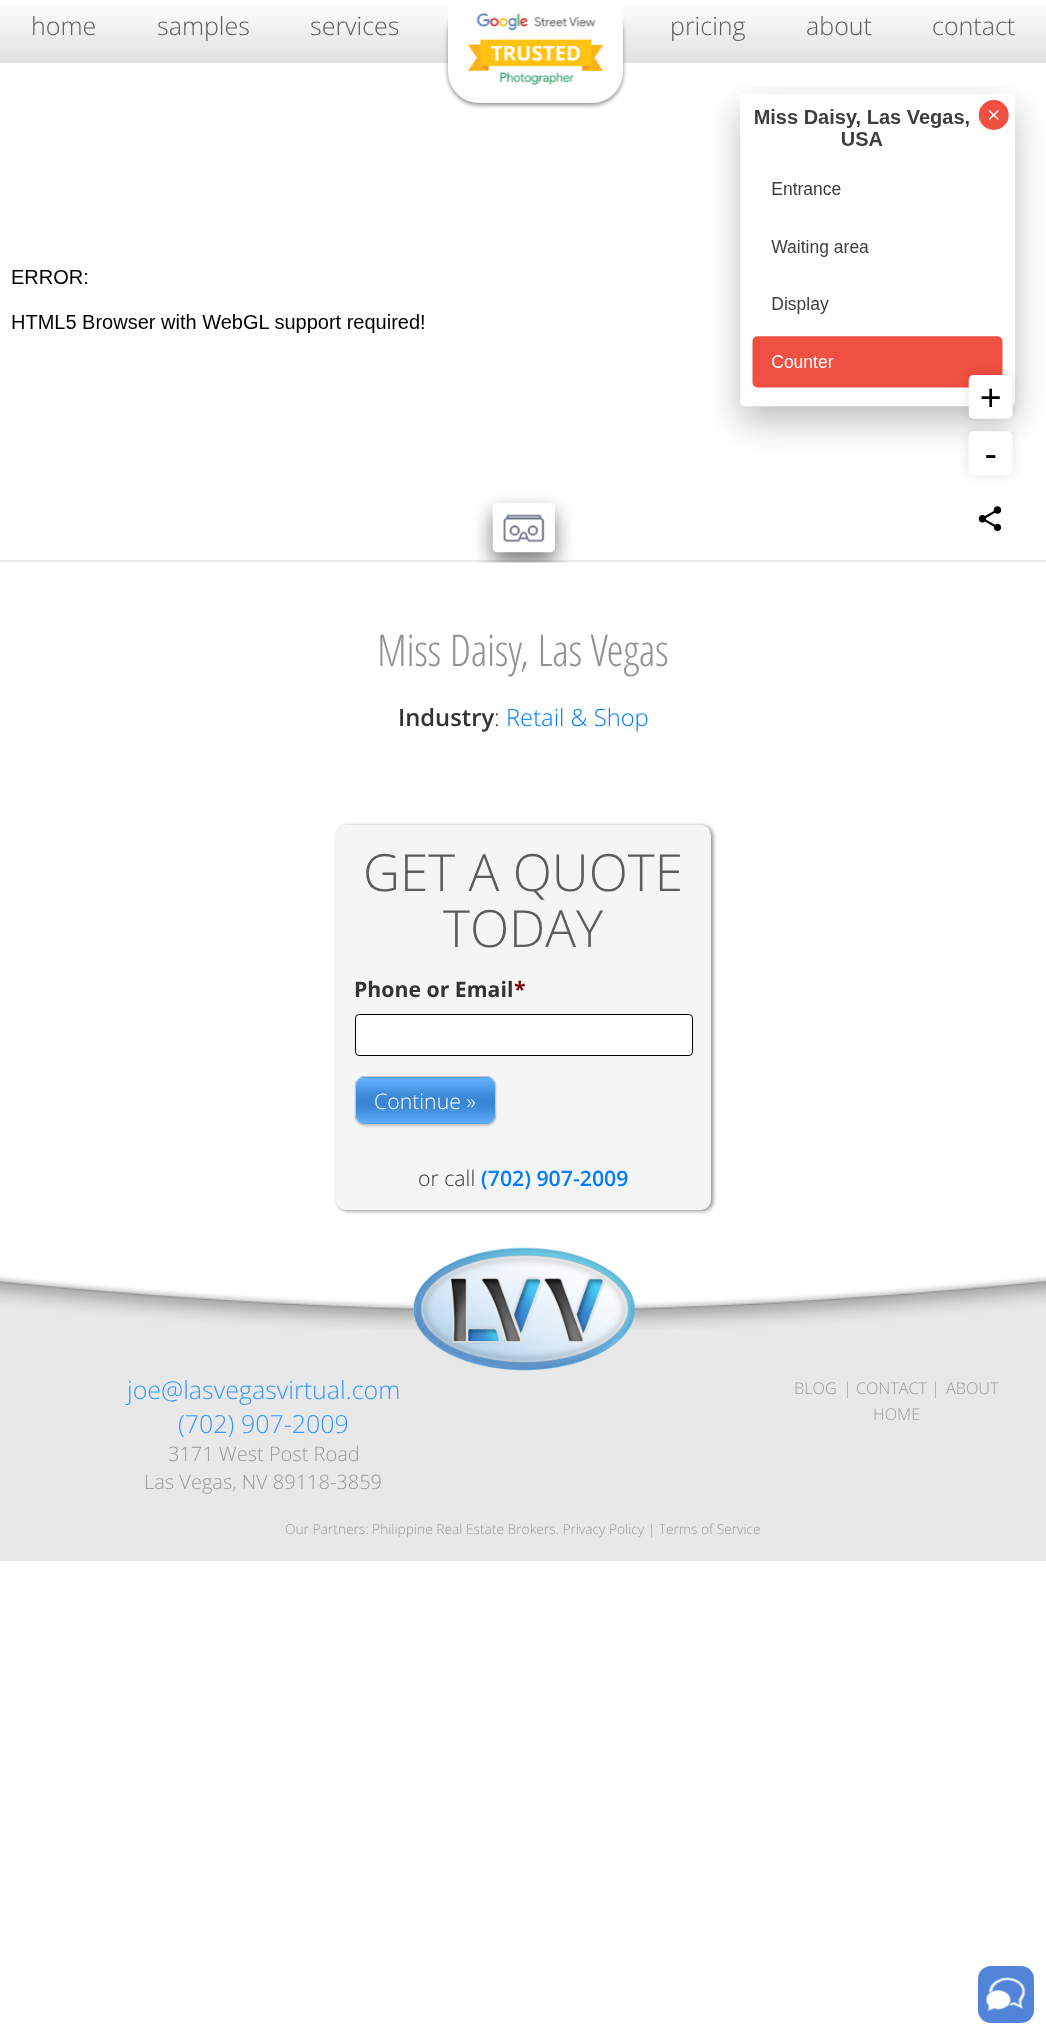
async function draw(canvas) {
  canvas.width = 1046;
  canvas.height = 2028;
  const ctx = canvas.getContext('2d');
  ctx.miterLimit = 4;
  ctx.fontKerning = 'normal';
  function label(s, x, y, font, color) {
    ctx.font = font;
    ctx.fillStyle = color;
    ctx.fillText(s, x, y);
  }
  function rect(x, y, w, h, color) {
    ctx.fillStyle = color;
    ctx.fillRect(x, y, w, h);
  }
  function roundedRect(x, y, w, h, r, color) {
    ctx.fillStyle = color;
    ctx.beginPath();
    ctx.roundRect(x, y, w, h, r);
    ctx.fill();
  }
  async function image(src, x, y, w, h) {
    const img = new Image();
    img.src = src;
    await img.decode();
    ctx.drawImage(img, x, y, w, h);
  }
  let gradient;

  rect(0, 0, 1046, 2028, '#fff');
  gradient = ctx.createLinearGradient(523, 0, 523, 63);
  gradient.addColorStop(0, '#fff');
  gradient.addColorStop(1, '#e0e0e0');
  ctx.fillStyle = gradient;
  ctx.fillRect(0, 5, 1046, 58);
  label('home', 31, 35, '300 25px "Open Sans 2"', '#5c5c5c');
  label('samples', 157, 35, '300 25px "Open Sans 2"', '#5c5c5c');
  label('services', 310, 35, '300 25px "Open Sans 2"', '#5c5c5c');
  await image('assets/img2.png', 0, 86, 1046, 477);
  ctx.fillStyle = '#888';
  ctx.filter = 'blur(2px)';
  ctx.beginPath();
  ctx.roundRect(448, 3, 175, 102, 31);
  ctx.fill();
  ctx.filter = 'none';
  ctx.fillStyle = '#fff';
  ctx.beginPath();
  ctx.roundRect(448, 0, 175, 103, [0, 0, 31, 31]);
  ctx.fill();
  await image('assets/img1.png', 467, 13, 137, 72);
  label('pricing', 670, 35, '300 25px "Open Sans 2"', '#5c5c5c');
  label('about', 806, 35, '300 25px "Open Sans 2"', '#5c5c5c');
  label('contact', 932, 35, '300 25px "Open Sans 2"', '#5c5c5c');
  ctx.letterSpacing = '-0.4px';
  ctx.wordSpacing = '1px';
  label('Miss Daisy, Las Vegas', 377, 666, '300 43.75px Open Sans', '#919191');
  ctx.letterSpacing = '0px';
  ctx.wordSpacing = '0px';
  label('Industry', 398, 726, '600 23.75px Open Sans', '#333');
  label(':', 494, 726, '300 23.75px "Open Sans 2"', '#333');
  label('Retail & Shop', 506, 726, '300 23.75px "Open Sans 2"', '#007efd');
  ctx.fillStyle = '#888';
  ctx.filter = 'blur(2px)';
  ctx.beginPath();
  ctx.roundRect(338, 826, 375, 385, 10);
  ctx.fill();
  ctx.filter = 'none';
  roundedRect(336, 825, 375, 385, 10, '#f5f5f5');
  label('GET A QUOTE', 363, 891, '300 51.25px "Open Sans 2"', '#5c5c5c');
  label('TODAY', 443, 947, '300 51.25px "Open Sans 2"', '#5c5c5c');
  label('Phone or Email', 354, 997, 'bold 21.25px Open Sans', '#333');
  label('*', 514, 997, 'bold 21.25px Open Sans', '#790000');
  ctx.fillStyle = '#fff';
  ctx.beginPath();
  ctx.roundRect(355.5, 1014.5, 337, 41, 3.5);
  ctx.fill();
  ctx.strokeStyle = '#000';
  ctx.stroke();
  ctx.fillStyle = '#00000033';
  ctx.filter = 'blur(1px)';
  ctx.beginPath();
  ctx.roundRect(355, 1078, 141, 48, 10);
  ctx.fill();
  ctx.filter = 'none';
  roundedRect(355, 1076, 141, 49, 10, '#39f');
  await image('assets/img3.png', 355, 1077, 141, 47);
  ctx.beginPath();
  ctx.roundRect(355.5, 1076.5, 140, 48, 9.5);
  ctx.strokeStyle = '#c7c7c7';
  ctx.stroke();
  label('Continue »', 374, 1109, '300 21.25px "Open Sans 2"', '#fff');
  label('or call', 418, 1186, '300 21.25px "Open Sans 2"', '#333');
  label('(702) 907-2009', 481, 1186, '600 21.25px Open Sans', '#007efd');
  rect(0, 1280, 1046, 281, '#e8e8e8');
  await image('assets/img4.png', 0, 1270, 1046, 60);
  await image('assets/img5.png', 413, 1247, 223, 124);
  label('joe@lasvegasvirtual.com', 127, 1399, '300 25px "Open Sans 2"', '#39f');
  label('(702) 907-2009', 178, 1433, '300 25px "Open Sans 2"', '#39f');
  label('3171 West Post Road', 168, 1461, '300 20px "Open Sans 2"', '#9a9a9a');
  label('Las Vegas, NV 89118-3859', 144, 1489, '300 20px "Open Sans 2"', '#9a9a9a');
  label('BLOG', 794, 1394, '300 16.25px "Open Sans 2"', '#9a9a9a');
  label('|', 843, 1394, '300 16.25px "Open Sans 2"', '#9a9a9a');
  label('CONTACT |', 856, 1394, '300 16.25px "Open Sans 2"', '#9a9a9a');
  label('ABOUT', 946, 1394, '300 16.25px "Open Sans 2"', '#9a9a9a');
  label('HOME', 873, 1420, '300 16.25px "Open Sans 2"', '#9a9a9a');
  label('Our Partners: Philippine Real Estate Brokers. Privacy Policy | Terms of Service', 285, 1534, '300 13.75px "Open Sans 2"', '#9a9a9a');
  roundedRect(978, 1966, 56, 57, 13, '#5184d8');
  await image('assets/img6.png', 985, 1977, 41, 35);
}

draw(document.querySelector('canvas'));
